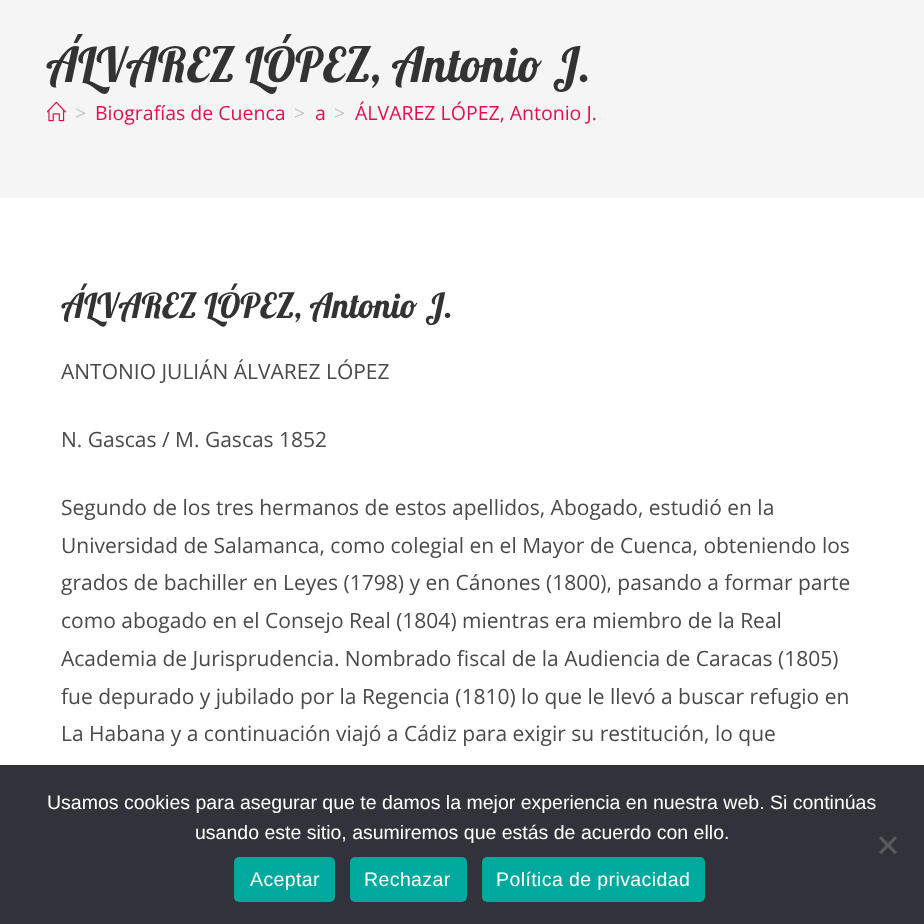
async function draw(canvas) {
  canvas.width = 924;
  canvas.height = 924;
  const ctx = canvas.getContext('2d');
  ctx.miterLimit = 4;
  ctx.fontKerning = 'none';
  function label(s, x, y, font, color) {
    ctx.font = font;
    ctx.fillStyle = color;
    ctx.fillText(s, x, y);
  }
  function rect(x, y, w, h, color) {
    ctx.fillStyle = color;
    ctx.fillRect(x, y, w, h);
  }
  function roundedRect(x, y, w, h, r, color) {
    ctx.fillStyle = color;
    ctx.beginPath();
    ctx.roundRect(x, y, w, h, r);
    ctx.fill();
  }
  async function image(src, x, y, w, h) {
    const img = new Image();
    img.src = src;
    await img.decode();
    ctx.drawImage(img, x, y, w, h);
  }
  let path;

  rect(0, 0, 924, 924, '#fff');
  rect(0, 0, 924, 198, '#f5f5f5');
  label('ÁLVAREZ LÓPEZ, Antonio J.', 46, 82, '48px Lobster', '#333');
  await image('assets/img1.png', 47, 101, 19, 21);
  label('>', 75, 120, '19.5px Open Sans', '#c6c6c6');
  label('Biografías de Cuenca', 95, 120, '19.5px Open Sans', '#e2114e');
  label('>', 294, 120, '19.5px Open Sans', '#c6c6c6');
  label('a', 315, 120, '19.5px Open Sans', '#e2114e');
  label('>', 334, 120, '19.5px Open Sans', '#c6c6c6');
  label('ÁLVAREZ LÓPEZ, Antonio J.', 355, 120, '19.5px Open Sans', '#e2114e');
  label('ÁLVAREZ LÓPEZ, Antonio J.', 61, 318, '34.5px Lobster', '#333');
  label('ANTONIO JULIÁN ÁLVAREZ LÓPEZ', 61, 379, '21px Open Sans', '#4a4a4a');
  label('N. Gascas / M. Gascas 1852', 61, 447, '21px Open Sans', '#4a4a4a');
  label('Segundo de los tres hermanos de estos apellidos, Abogado, estudió en la', 61, 515, '21px Open Sans', '#4a4a4a');
  label('Universidad de Salamanca, como colegial en el Mayor de Cuenca, obteniendo los', 61, 553, '21px Open Sans', '#4a4a4a');
  label('grados de bachiller en Leyes (1798) y en Cánones (1800), pasando a formar parte', 61, 590, '21px Open Sans', '#4a4a4a');
  label('como abogado en el Consejo Real (1804) mientras era miembro de la Real', 61, 628, '21px Open Sans', '#4a4a4a');
  label('Academia de Jurisprudencia. Nombrado fiscal de la Audiencia de Caracas (1805)', 61, 666, '21px Open Sans', '#4a4a4a');
  label('fue depurado y jubilado por la Regencia (1810) lo que le llevó a buscar refugio en', 61, 704, '21px Open Sans', '#4a4a4a');
  label('La Habana y a continuación viajó a Cádiz para exigir su restitución, lo que', 61, 741, '21px Open Sans', '#4a4a4a');
  rect(0, 765, 924, 159, '#32323a');
  label('Usamos cookies para asegurar que te damos la mejor experiencia en nuestra web. Si continúas', 47, 809, '19.5px Liberation Sans', '#fff');
  label('usando este sitio, asumiremos que estás de acuerdo con ello.', 195, 839, '19.5px Liberation Sans', '#fff');
  ctx.fillStyle = '#59595d';
  path = new Path2D('M895 836L897 838.5L881 854.5L879 852Z');
  ctx.fill(path);
  path = new Path2D('M879 838.5L881 836L897 852L895 854.5Z');
  ctx.fill(path);
  roundedRect(234, 857, 101, 45, 5, '#00a99d');
  ctx.letterSpacing = '0.4px';
  label('Aceptar', 250, 886, '19.5px Liberation Sans', '#fff');
  roundedRect(350, 857, 117, 45, 5, '#00a99d');
  label('Rechazar', 364, 886, '19.5px Liberation Sans', '#fff');
  roundedRect(482, 857, 223, 45, 5, '#00a99d');
  label('Política de privacidad', 496, 886, '19.5px Liberation Sans', '#fff');
}

draw(document.querySelector('canvas'));
